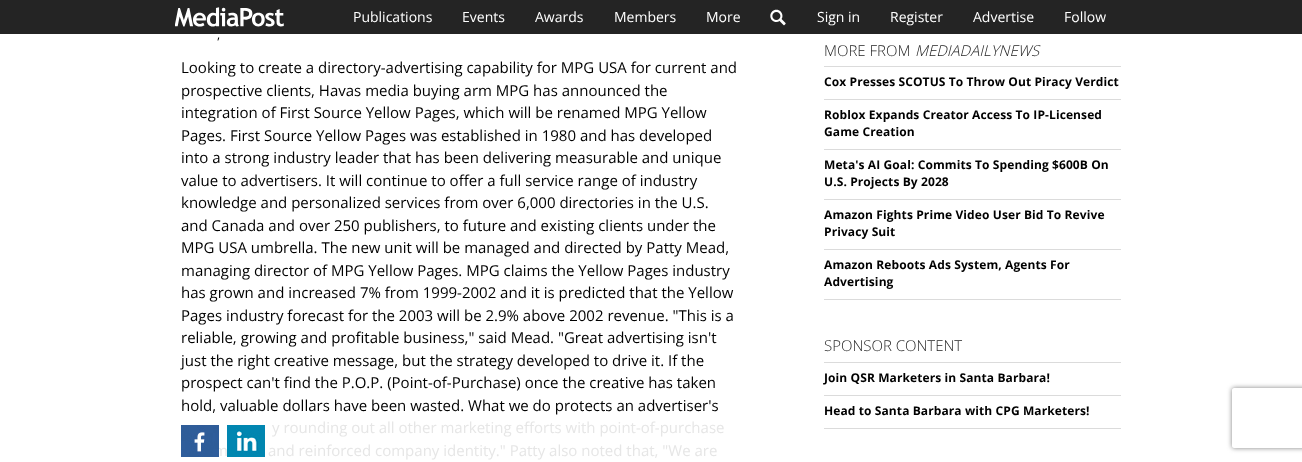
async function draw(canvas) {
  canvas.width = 1302;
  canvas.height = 462;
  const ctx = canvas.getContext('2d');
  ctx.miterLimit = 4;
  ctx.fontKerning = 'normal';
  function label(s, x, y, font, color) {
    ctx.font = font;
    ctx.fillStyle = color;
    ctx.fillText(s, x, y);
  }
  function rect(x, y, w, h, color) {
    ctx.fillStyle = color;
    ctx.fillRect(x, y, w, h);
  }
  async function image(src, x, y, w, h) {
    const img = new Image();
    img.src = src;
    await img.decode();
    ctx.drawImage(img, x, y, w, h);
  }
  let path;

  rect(0, 0, 1302, 462, '#fff');
  rect(0, 0, 1302, 34, '#242424');
  await image('assets/img1.png', 175, 7, 109, 20);
  label('Publications', 353, 22, '14px Open Sans', '#fff');
  label('Events', 462, 22, '14px Open Sans', '#fff');
  label('Awards', 535, 22, '14px Open Sans', '#fff');
  label('Members', 614, 22, '14px Open Sans', '#fff');
  label('More', 706, 22, '14px Open Sans', '#fff');
  await image('assets/img2.png', 770, 9, 16, 17);
  label('Sign in', 817, 22, '14px Open Sans', '#fff');
  label('Register', 890, 22, '14px Open Sans', '#fff');
  label('Advertise', 973, 22, '14px Open Sans', '#fff');
  label('Follow', 1064, 22, '14px Open Sans', '#fff');
  label(',', 217, 39, '12px Open Sans', '#000');
  label('Looking to create a directory-advertising capability for MPG USA for current and', 181, 73, '15px Open Sans', '#000');
  label('prospective clients, Havas media buying arm MPG has announced the', 181, 96, '15px Open Sans', '#000');
  label('integration of First Source Yellow Pages, which will be renamed MPG Yellow', 181, 118, '15px Open Sans', '#000');
  label('Pages. First Source Yellow Pages was established in 1980 and has developed', 181, 141, '15px Open Sans', '#000');
  label('into a strong industry leader that has been delivering measurable and unique', 181, 163, '15px Open Sans', '#000');
  label('value to advertisers. It will continue to offer a full service range of industry', 181, 186, '15px Open Sans', '#000');
  label('knowledge and personalized services from over 6,000 directories in the U.S.', 181, 208, '15px Open Sans', '#000');
  label('and Canada and over 250 publishers, to future and existing clients under the', 181, 231, '15px Open Sans', '#000');
  label('MPG USA umbrella. The new unit will be managed and directed by Patty Mead,', 181, 253, '15px Open Sans', '#000');
  label('managing director of MPG Yellow Pages. MPG claims the Yellow Pages industry', 181, 276, '15px Open Sans', '#000');
  label('has grown and increased 7% from 1999-2002 and it is predicted that the Yellow', 181, 298, '15px Open Sans', '#000');
  label('Pages industry forecast for the 2003 will be 2.9% above 2002 revenue. "This is a', 181, 321, '15px Open Sans', '#000');
  label('reliable, growing and profitable business," said Mead. "Great advertising isn\'t', 181, 343, '15px Open Sans', '#000');
  label('just the right creative message, but the strategy developed to drive it. If the', 181, 366, '15px Open Sans', '#000');
  label('prospect can\'t find the P.O.P. (Point-of-Purchase) once the creative has taken', 181, 388, '15px Open Sans', '#000');
  label('hold, valuable dollars have been wasted. What we do protects an advertiser\'s', 181, 411, '15px Open Sans', '#000');
  label('y rounding out all other marketing efforts with point-of-purchase', 272, 433, '15px Open Sans', '#e6e6e6');
  label('m', 214, 456, '15px Open Sans', '#e6e6e6');
  label('and reinforced company identity." Patty also noted that, "We are', 268, 456, '15px Open Sans', '#e6e6e6');
  await image('assets/img3.png', 181, 425, 38, 32);
  await image('assets/img4.png', 227, 425, 38, 32);
  rect(824, 66, 297, 1, '#dbdbdb');
  label('MORE FROM', 824, 56, '300 15px Open Sans', '#242424');
  label('MEDIADAILYNEWS', 915, 56, 'italic 300 15px Open Sans', '#242424');
  rect(824, 99, 297, 1, '#dbdbdb');
  ctx.letterSpacing = '0.1px';
  label('Cox Presses SCOTUS To Throw Out Piracy Verdict', 824, 86, 'bold 12px Open Sans', '#000');
  rect(824, 149, 297, 1, '#dbdbdb');
  label('Roblox Expands Creator Access To IP-Licensed', 824, 119, 'bold 12px Open Sans', '#000');
  label('Game Creation', 824, 136, 'bold 12px Open Sans', '#000');
  rect(824, 199, 297, 1, '#dbdbdb');
  label('Meta\'s AI Goal: Commits To Spending $600B On', 824, 169, 'bold 12px Open Sans', '#000');
  label('U.S. Projects By 2028', 824, 186, 'bold 12px Open Sans', '#000');
  rect(824, 249, 297, 1, '#dbdbdb');
  label('Amazon Fights Prime Video User Bid To Revive', 824, 219, 'bold 12px Open Sans', '#000');
  label('Privacy Suit', 824, 236, 'bold 12px Open Sans', '#000');
  rect(824, 299, 297, 1, '#dbdbdb');
  label('Amazon Reboots Ads System, Agents For', 824, 269, 'bold 12px Open Sans', '#000');
  label('Advertising', 824, 286, 'bold 12px Open Sans', '#000');
  rect(824, 362, 297, 1, '#dbdbdb');
  ctx.letterSpacing = '0px';
  label('SPONSOR CONTENT', 824, 351, '300 15px Open Sans', '#242424');
  rect(824, 395, 297, 1, '#dbdbdb');
  ctx.letterSpacing = '0.1px';
  label('Join QSR Marketers in Santa Barbara!', 824, 382, 'bold 12px Open Sans', '#000');
  rect(824, 428, 297, 1, '#dbdbdb');
  label('Head to Santa Barbara with CPG Marketers!', 824, 415, 'bold 12px Open Sans', '#000');
  ctx.save();
  path = new Path2D('M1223 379H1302V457H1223ZM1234 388H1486C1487 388 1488 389 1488 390V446C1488 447 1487 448 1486 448H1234C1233 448 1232 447 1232 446V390C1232 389 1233 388 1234 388Z');
  ctx.clip(path, 'evenodd');
  ctx.fillStyle = '#808080';
  ctx.filter = 'blur(2.5px)';
  ctx.beginPath();
  ctx.roundRect(1232, 388, 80, 60, 2);
  ctx.fill();
  ctx.filter = 'none';
  ctx.restore();
}

draw(document.querySelector('canvas'));
